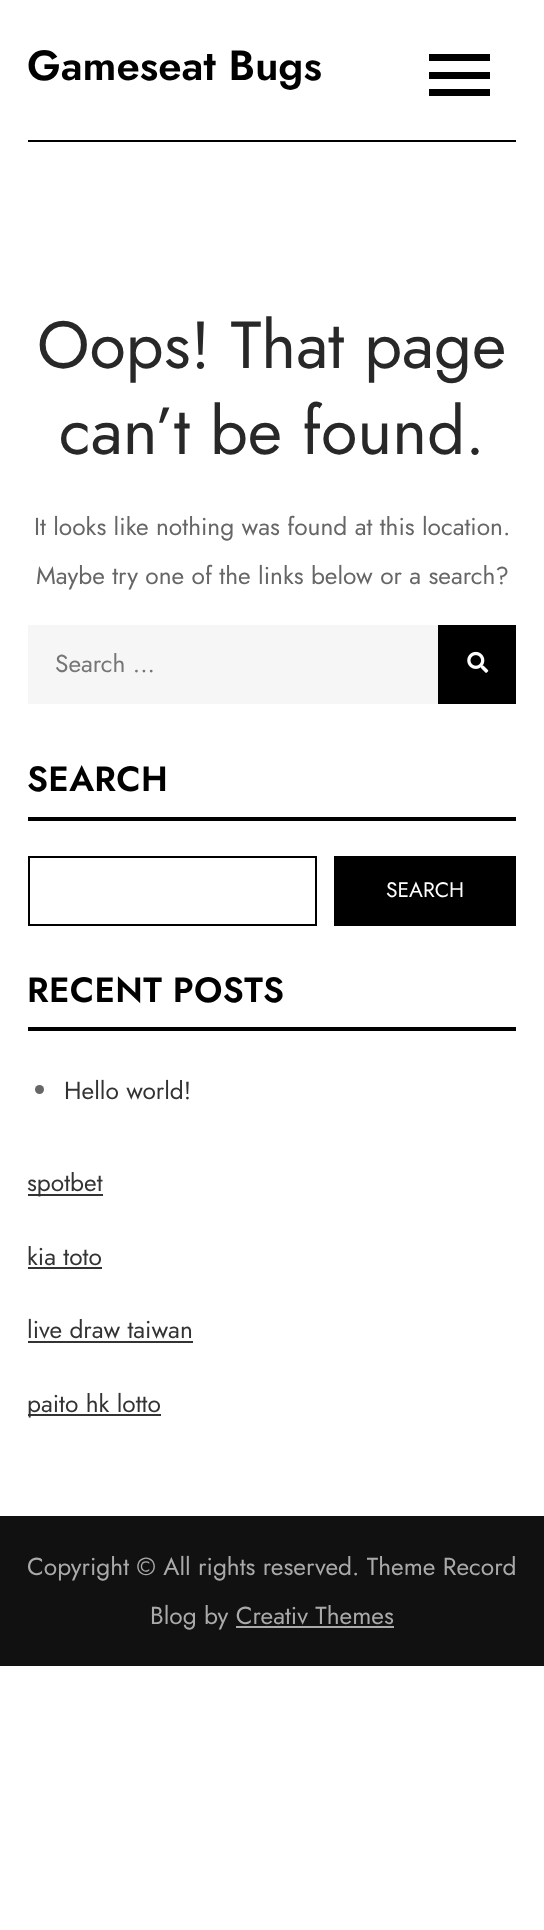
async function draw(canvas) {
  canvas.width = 544;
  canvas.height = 1930;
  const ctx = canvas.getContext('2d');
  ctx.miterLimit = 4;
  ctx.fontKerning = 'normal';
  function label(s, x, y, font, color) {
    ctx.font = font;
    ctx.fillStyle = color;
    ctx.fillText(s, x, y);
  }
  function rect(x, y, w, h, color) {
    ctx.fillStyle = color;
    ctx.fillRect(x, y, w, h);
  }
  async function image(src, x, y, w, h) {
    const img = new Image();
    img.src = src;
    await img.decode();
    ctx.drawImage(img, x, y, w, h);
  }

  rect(0, 0, 544, 1930, '#fff');
  rect(28, 140, 488, 2, '#000');
  label('Gameseat Bugs', 27, 80, '600 42px Jost', '#000');
  rect(429, 72, 61, 7, '#000');
  rect(429, 54, 61, 7, '#000');
  rect(429, 89, 61, 7, '#000');
  label('Oops! That page', 37, 368, '66.5px Jost', '#282828');
  label('can’t be found.', 59, 454, '66.5px Jost', '#282828');
  label('It looks like nothing was found at this location.', 34, 535, '24.5px Jost', '#666');
  label('Maybe try one of the links below or a search?', 36, 584, '24.5px Jost', '#666');
  rect(28, 625, 410, 79, '#f6f6f6');
  label('Search ...', 55, 672, '24.5px Jost', '#757575');
  rect(438, 625, 78, 79, '#000');
  await image('assets/img1.png', 467, 651, 22, 22);
  rect(28, 817, 488, 4, '#000');
  ctx.letterSpacing = '0.3px';
  label('SEARCH', 27, 791, '600 35px Jost', '#000');
  ctx.strokeStyle = '#000';
  ctx.lineWidth = 2;
  ctx.strokeRect(29, 857, 287, 68);
  rect(334, 856, 182, 70, '#000');
  ctx.letterSpacing = '0px';
  label('SEARCH', 386, 897, '21px Jost', '#fff');
  rect(28, 1027, 488, 4, '#000');
  ctx.letterSpacing = '0.3px';
  label('RECENT POSTS', 27, 1002, '600 35px Jost', '#000');
  ctx.fillStyle = '#666';
  ctx.beginPath();
  ctx.arc(39.5, 1089.5, 4.5, 0, 2 * Math.PI);
  ctx.fill();
  ctx.letterSpacing = '0px';
  label('Hello world!', 64, 1099, '24.5px Jost', '#333');
  rect(28, 1194, 75, 2, '#333');
  label('spotbet', 27, 1191, '24.5px Jost', '#333');
  label('kia toto', 27, 1265, '24.5px Jost', '#333');
  rect(28, 1267, 74, 2, '#333');
  label('live draw taiwan', 27, 1338, '24.5px Jost', '#333');
  rect(28, 1341, 165, 2, '#333');
  rect(28, 1414, 133, 2, '#333');
  label('paito hk lotto', 27, 1412, '24.5px Jost', '#333');
  rect(0, 1516, 544, 150, '#111');
  label('Copyright © All rights reserved. Theme Record', 27, 1575, '24.5px Jost', '#aaa');
  label('Blog by Creativ Themes', 150, 1624, '24.5px Jost', '#aaa');
  rect(236, 1626, 158, 2, '#aaa');
}

draw(document.querySelector('canvas'));
